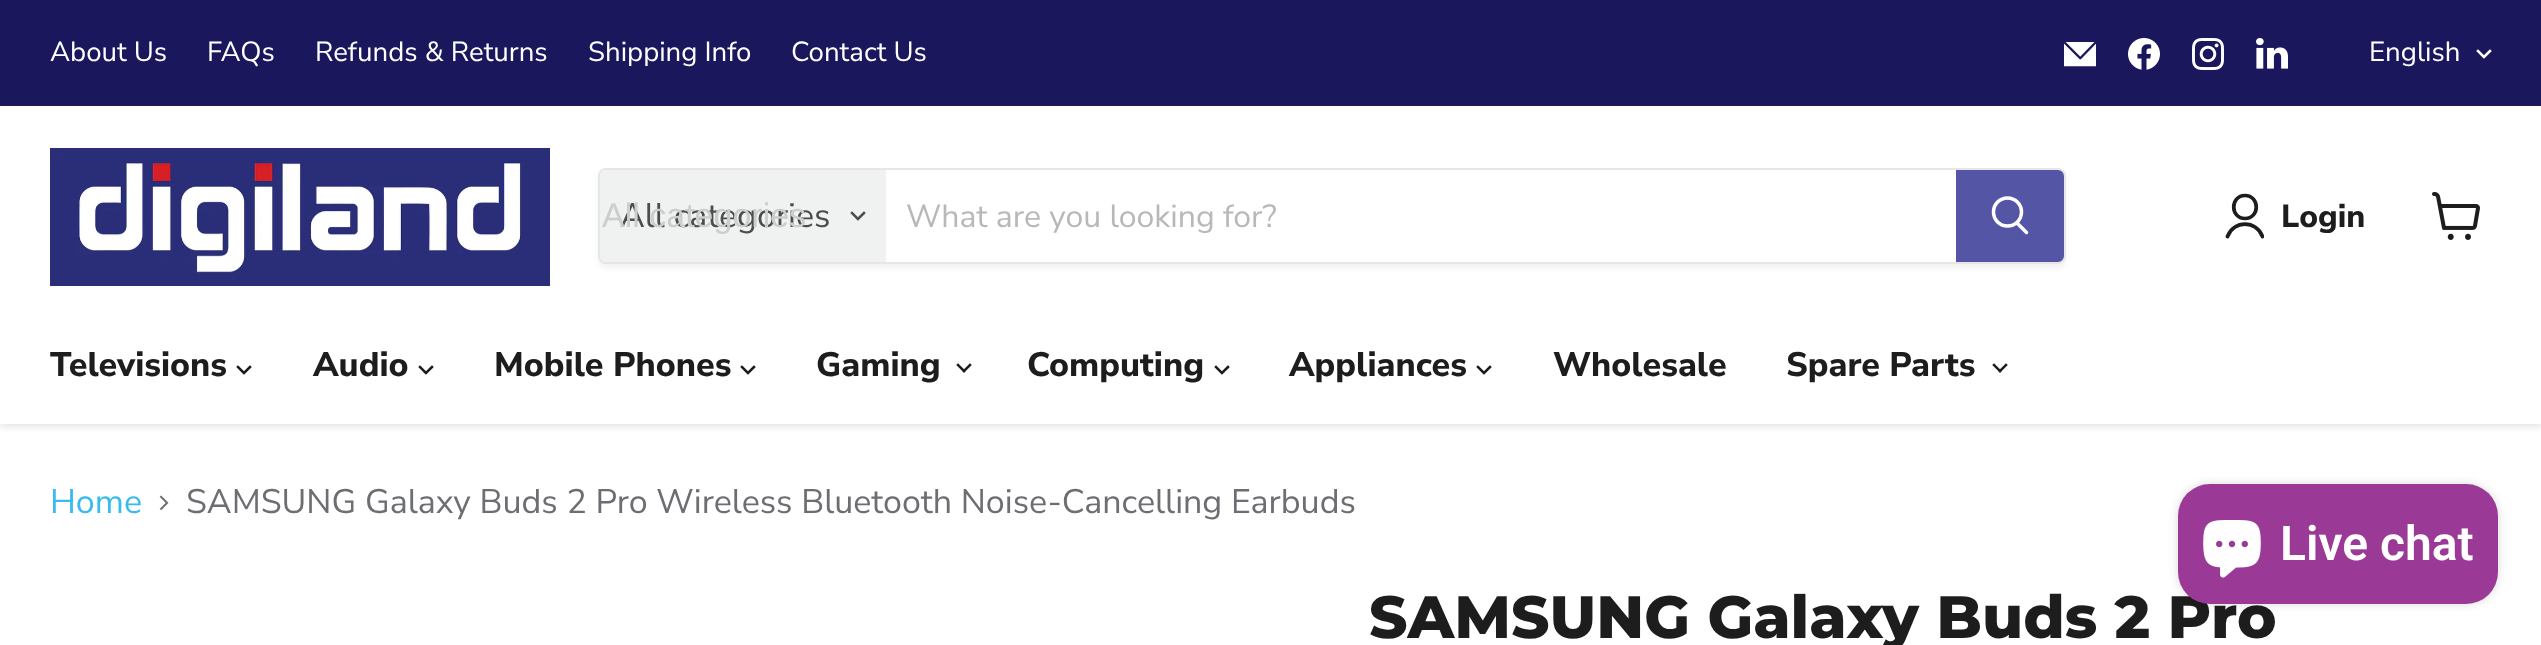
async function draw(canvas) {
  canvas.width = 2541;
  canvas.height = 645;
  const ctx = canvas.getContext('2d');
  ctx.miterLimit = 4;
  ctx.fontKerning = 'normal';
  function label(s, x, y, font, color) {
    ctx.font = font;
    ctx.fillStyle = color;
    ctx.fillText(s, x, y);
  }
  function rect(x, y, w, h, color) {
    ctx.fillStyle = color;
    ctx.fillRect(x, y, w, h);
  }
  function roundedRect(x, y, w, h, r, color) {
    ctx.fillStyle = color;
    ctx.beginPath();
    ctx.roundRect(x, y, w, h, r);
    ctx.fill();
  }
  async function image(src, x, y, w, h) {
    const img = new Image();
    img.src = src;
    await img.decode();
    ctx.drawImage(img, x, y, w, h);
  }
  let path;

  rect(0, 0, 2541, 645, '#fff');
  ctx.save();
  ctx.beginPath();
  ctx.rect(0, 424, 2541, 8);
  ctx.clip();
  ctx.fillStyle = '#80808040';
  ctx.filter = 'blur(4px)';
  ctx.beginPath();
  ctx.rect(0, 110, 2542, 316);
  ctx.fill();
  ctx.filter = 'none';
  ctx.restore();
  rect(0, 0, 2541, 106, '#1b175d');
  rect(0, 106, 2541, 2, '#fff');
  label('About Us', 50, 61, '27.6px Nunito Sans', '#fff');
  label('FAQs', 207, 61, '27.6px Nunito Sans', '#fff');
  label('Refunds & Returns', 315, 61, '27.6px Nunito Sans', '#fff');
  label('Shipping Info', 588, 61, '27.6px Nunito Sans', '#fff');
  label('Contact Us', 791, 61, '27.6px Nunito Sans', '#fff');
  await image('assets/img1.png', 2064, 42, 32, 25);
  await image('assets/img2.png', 2128, 38, 32, 32);
  await image('assets/img3.png', 2192, 38, 32, 32);
  await image('assets/img4.png', 2256, 38, 32, 31);
  label('English', 2369, 61, '27.6px Nunito Sans', '#fff');
  path = new Path2D('M2484 57L2490 51M2484 57L2478 51');
  ctx.strokeStyle = '#fff';
  ctx.lineWidth = 2.5;
  ctx.lineCap = 'square';
  ctx.stroke(path);
  await image('assets/img5.png', 50, 148, 500, 138);
  ctx.save();
  path = new Path2D('M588 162H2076V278H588ZM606 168H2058C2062.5 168 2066 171.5 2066 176V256C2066 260.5 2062.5 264 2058 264H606C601.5 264 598 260.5 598 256V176C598 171.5 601.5 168 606 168Z');
  ctx.clip(path, 'evenodd');
  ctx.fillStyle = '#8080801c';
  ctx.filter = 'blur(3px)';
  ctx.beginPath();
  ctx.roundRect(598, 172, 1468, 96, 8);
  ctx.fill();
  ctx.filter = 'none';
  ctx.restore();
  ctx.beginPath();
  ctx.roundRect(599, 169, 1466, 94, 7);
  ctx.strokeStyle = '#80808033';
  ctx.lineWidth = 2;
  ctx.stroke();
  ctx.fillStyle = '#f0f1f1';
  ctx.beginPath();
  ctx.roundRect(600, 170, 286, 92, [6, 0, 0, 6]);
  ctx.fill();
  label('All categories', 620, 227, '34px Nunito Sans', '#4d4d4d');
  label('All categories', 602, 227, '34px Liberation Sans', '#cccdcd');
  path = new Path2D('M858 219L864 213M858 219L852 213');
  ctx.strokeStyle = '#4d4d4d';
  ctx.lineWidth = 2.5;
  ctx.stroke(path);
  label('What are you looking for?', 906, 227, '32px Nunito Sans', '#b8b8b8');
  ctx.fillStyle = '#5555a5';
  ctx.beginPath();
  ctx.roundRect(1957, 171, 106, 90, [0, 5, 5, 0]);
  ctx.fill();
  ctx.strokeStyle = '#5555a5';
  ctx.lineWidth = 2;
  ctx.stroke();
  path = new Path2D('M2026.5 232.5L2017 223');
  ctx.strokeStyle = '#fff';
  ctx.lineWidth = 3.5;
  ctx.lineCap = 'round';
  ctx.stroke(path);
  ctx.beginPath();
  ctx.arc(2007.5, 212, 14, 0, 2 * Math.PI);
  ctx.stroke();
  path = new Path2D('M2245 218.5C2260 218.5 2260 195.5 2245 195.5C2230 195.5 2230 218.5 2245 218.5Z');
  ctx.strokeStyle = '#1d1d1d';
  ctx.lineWidth = 3.7;
  ctx.lineJoin = 'round';
  ctx.stroke(path);
  ctx.save();
  ctx.beginPath();
  ctx.rect(2224, 192, 40, 48);
  ctx.clip();
  path = new Path2D('M2262.5 236.5C2256.5 220 2233.5 220 2227.5 236.5');
  ctx.stroke(path);
  ctx.restore();
  label('Login', 2281, 227, '800 32px Nunito Sans', '#1d1d1d');
  await image('assets/img6.png', 2432, 192, 48, 48);
  label('Televisions', 50, 376, '800 34px Nunito Sans', '#1d1d1d');
  path = new Path2D('M244 373L250 367M244 373L238 367');
  ctx.lineWidth = 2.5;
  ctx.lineCap = 'square';
  ctx.lineJoin = 'miter';
  ctx.stroke(path);
  label('Audio', 313, 376, '800 34px Nunito Sans', '#1d1d1d');
  path = new Path2D('M426 373L432 367M426 373L420 367');
  ctx.stroke(path);
  label('Mobile Phones', 494, 376, '800 34px Nunito Sans', '#1d1d1d');
  path = new Path2D('M748 373L754 367M748 373L742 367');
  ctx.stroke(path);
  label('Gaming', 816, 376, '800 34px Nunito Sans', '#1d1d1d');
  await image('assets/img7.png', 956, 363, 16, 10);
  label('Computing', 1027, 376, '800 34px Nunito Sans', '#1d1d1d');
  path = new Path2D('M1222 373L1228 367M1222 373L1216 367');
  ctx.stroke(path);
  label('Appliances', 1289, 376, '800 34px Nunito Sans', '#1d1d1d');
  path = new Path2D('M1484 373L1490 367M1484 373L1478 367');
  ctx.stroke(path);
  label('Wholesale', 1553, 376, '800 34px Nunito Sans', '#1d1d1d');
  label('Spare Parts', 1786, 376, '800 34px Nunito Sans', '#1d1d1d');
  await image('assets/img7.png', 1992, 363, 16, 10);
  label('Home', 50, 513, '34px Nunito Sans', '#39bced');
  await image('assets/img8.png', 159, 495, 10, 16);
  label('SAMSUNG Galaxy Buds 2 Pro Wireless Bluetooth Noise-Cancelling Earbuds', 186, 513, '34px Nunito Sans', '#6d6e71');
  label('SAMSUNG Galaxy Buds 2 Pro', 1369, 638, '800 59.5px Montserrat', '#1d1d1d');
  ctx.fillStyle = '#00000026';
  ctx.filter = 'blur(5px)';
  ctx.beginPath();
  ctx.roundRect(2178, 484, 320, 120, 32);
  ctx.fill();
  ctx.filter = 'none';
  roundedRect(2178, 484, 320, 120, 32, '#9b3a96');
  await image('assets/img9.png', 2203, 520, 58, 58);
  label('Live chat', 2280, 560, '600 48px Roboto', '#fff');
}

draw(document.querySelector('canvas'));
